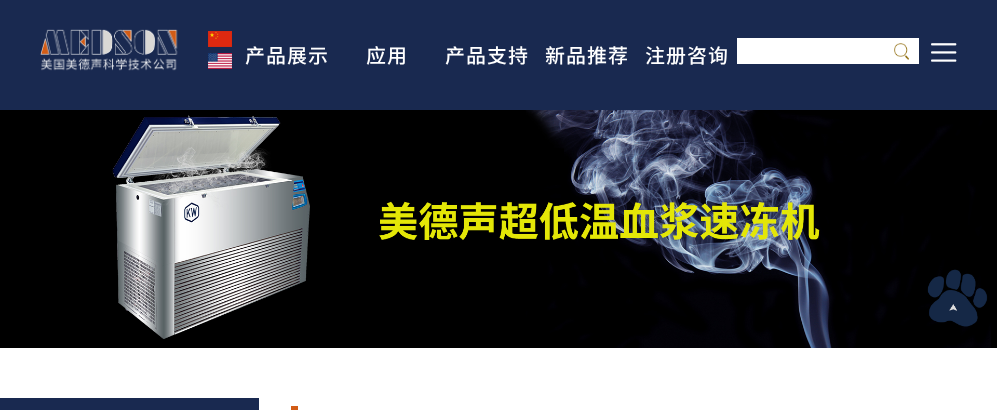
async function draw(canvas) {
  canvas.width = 997;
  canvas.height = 410;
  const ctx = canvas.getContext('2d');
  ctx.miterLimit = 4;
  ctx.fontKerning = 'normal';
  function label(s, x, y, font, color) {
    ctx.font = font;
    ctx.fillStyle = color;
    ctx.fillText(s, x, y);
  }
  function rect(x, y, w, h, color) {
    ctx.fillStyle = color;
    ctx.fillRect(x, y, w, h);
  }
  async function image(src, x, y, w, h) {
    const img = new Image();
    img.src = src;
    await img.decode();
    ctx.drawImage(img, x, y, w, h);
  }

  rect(0, 0, 997, 410, '#fff');
  rect(0, 0, 997, 110, '#192950');
  await image('assets/img1.png', 40, 29, 138, 42);
  await image('assets/img2.png', 208, 31, 24, 16);
  await image('assets/img3.png', 208, 53, 24, 16);
  ctx.letterSpacing = '1px';
  label('产品展示', 245, 63, '500 20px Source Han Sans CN', '#fff');
  label('应用', 366, 63, '500 20px Source Han Sans CN', '#fff');
  label('产品支持', 445, 63, '500 20px Source Han Sans CN', '#fff');
  label('新品推荐', 545, 63, '500 20px Source Han Sans CN', '#fff');
  label('注册咨询', 645, 63, '500 20px Source Han Sans CN', '#fff');
  rect(737, 38, 182, 26, '#fff');
  await image('assets/img4.png', 894, 43, 15, 17);
  await image('assets/img5.png', 931, 43, 26, 19);
  await image('assets/img6.png', 0, 110, 997, 238);
  await image('assets/img7.png', 927, 269, 61, 58);
  rect(0, 398, 259, 12, '#192950');
  rect(291, 406, 7, 4, '#d25c16');
}

draw(document.querySelector('canvas'));
